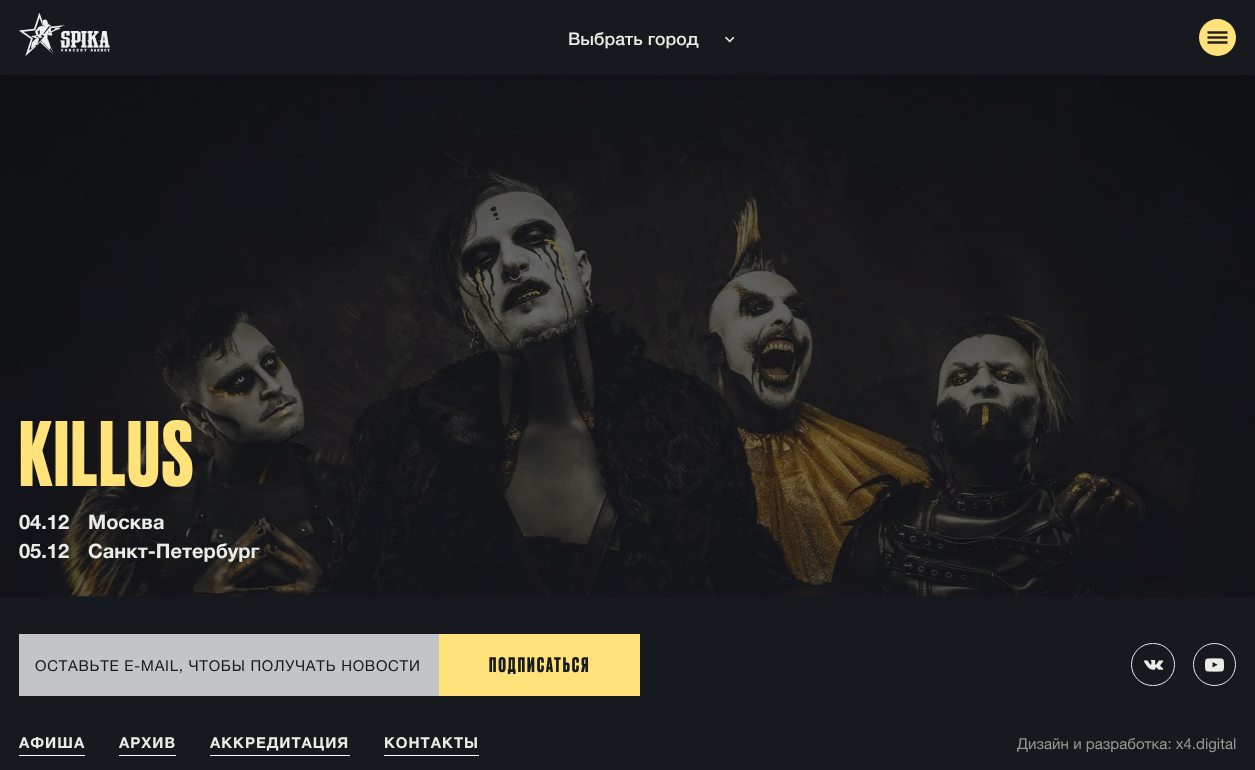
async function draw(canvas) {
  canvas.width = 1255;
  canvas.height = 770;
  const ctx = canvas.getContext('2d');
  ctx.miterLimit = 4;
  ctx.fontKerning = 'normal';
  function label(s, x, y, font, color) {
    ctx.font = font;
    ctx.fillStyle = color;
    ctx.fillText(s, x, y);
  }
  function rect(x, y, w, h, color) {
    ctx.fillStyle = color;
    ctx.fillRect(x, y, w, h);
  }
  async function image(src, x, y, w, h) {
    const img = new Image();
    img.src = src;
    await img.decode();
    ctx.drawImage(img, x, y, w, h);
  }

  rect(0, 0, 1255, 770, '#16191d');
  await image('assets/img1.png', 19, 13, 91, 43);
  ctx.fillStyle = '#ffe279';
  ctx.beginPath();
  ctx.arc(1217.5, 37.5, 18.5, 0, 2 * Math.PI);
  ctx.fill();
  await image('assets/img2.png', 1207, 31, 21, 13);
  label('Выбрать город', 568, 45, '500 17.5px Helvetica Neue', '#ebece7');
  await image('assets/img3.png', 725, 36, 10, 7);
  await image('assets/img4.png', 0, 75, 1255, 522);
  ctx.letterSpacing = '1.75px';
  label('KILLUS', 19, 486, 'bold 87.5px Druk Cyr', '#ffe279');
  ctx.letterSpacing = '0px';
  label('04.12', 19, 529, 'bold 20px Helvetica Neue', '#ebece7');
  label('Москва', 88, 529, 'bold 20px Helvetica Neue', '#ebece7');
  label('05.12', 19, 558, 'bold 20px Helvetica Neue', '#ebece7');
  label('Санкт-Петербург', 88, 558, 'bold 20px Helvetica Neue', '#ebece7');
  rect(19, 634, 420, 62, '#c3c4c6');
  ctx.letterSpacing = '0.75px';
  label('ОСТАВЬТЕ E-MAIL, ЧТОБЫ ПОЛУЧАТЬ НОВОСТИ', 35, 671, '15px Helvetica Neue', '#16191d');
  rect(439, 634, 201, 62, '#ffe279');
  ctx.letterSpacing = '2px';
  label('ПОДПИСАТЬСЯ', 489, 672, 'bold 20px Druk Cyr', '#16191d');
  ctx.beginPath();
  ctx.roundRect(1131.5, 643.5, 43, 42, 21);
  ctx.strokeStyle = '#ebece7';
  ctx.stroke();
  await image('assets/img5.png', 1143, 660, 21, 10);
  ctx.beginPath();
  ctx.arc(1214.5, 664.5, 21, 0, 2 * Math.PI);
  ctx.stroke();
  await image('assets/img6.png', 1205, 658, 20, 14);
  ctx.letterSpacing = '1px';
  label('АФИША', 19, 748, 'bold 15px Helvetica Neue', '#ebece7');
  rect(19, 755, 66, 1, '#fff');
  label('АРХИВ', 119, 748, 'bold 15px Helvetica Neue', '#ebece7');
  rect(119, 755, 57, 1, '#fff');
  label('АККРЕДИТАЦИЯ', 210, 748, 'bold 15px Helvetica Neue', '#ebece7');
  rect(210, 755, 140, 1, '#fff');
  label('КОНТАКТЫ', 384, 748, 'bold 15px Helvetica Neue', '#ebece7');
  rect(384, 755, 95, 1, '#fff');
  ctx.letterSpacing = '0px';
  label('Дизайн и разработка: x4.digital', 1017, 749, '15px Helvetica Neue', '#969896');
}

draw(document.querySelector('canvas'));
